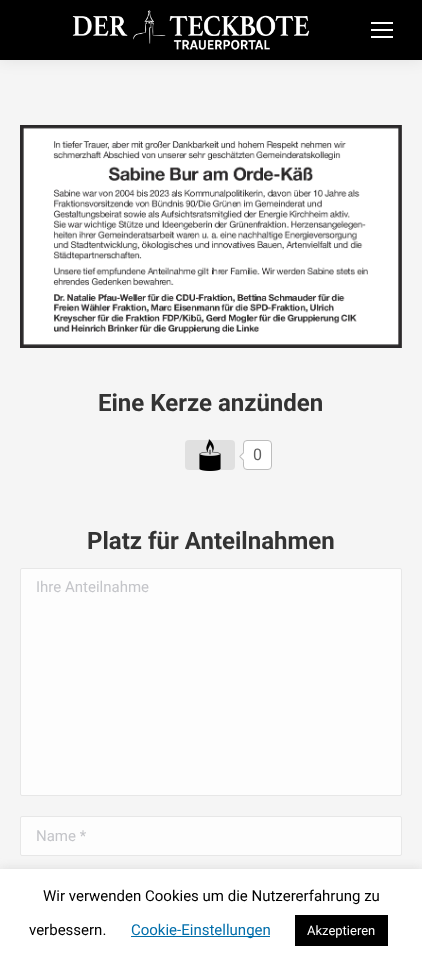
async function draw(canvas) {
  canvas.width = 422;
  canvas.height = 963;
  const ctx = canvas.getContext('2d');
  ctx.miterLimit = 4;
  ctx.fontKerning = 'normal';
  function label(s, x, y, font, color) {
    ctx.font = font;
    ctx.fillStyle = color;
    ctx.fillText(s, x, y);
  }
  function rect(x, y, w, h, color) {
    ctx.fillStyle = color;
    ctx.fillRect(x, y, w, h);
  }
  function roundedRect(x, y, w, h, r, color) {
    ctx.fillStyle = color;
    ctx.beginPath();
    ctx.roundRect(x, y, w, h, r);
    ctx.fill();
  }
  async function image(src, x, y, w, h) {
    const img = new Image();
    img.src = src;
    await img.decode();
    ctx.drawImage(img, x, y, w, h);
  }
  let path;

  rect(0, 0, 422, 963, '#f5f5f5');
  ctx.fillStyle = '#00000012';
  ctx.filter = 'blur(7.5px)';
  ctx.beginPath();
  ctx.rect(-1, -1, 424, 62);
  ctx.fill();
  ctx.filter = 'none';
  rect(0, 0, 422, 60, '#000');
  await image('assets/img1.png', 72, 10, 238, 40);
  rect(371, 22, 22, 2, '#fff');
  rect(371, 29, 22, 2, '#fff');
  rect(371, 36, 22, 2, '#fff');
  await image('assets/img2.png', 20, 125, 382, 223);
  label('Eine Kerze anzünden', 98, 411, 'bold 24px Roboto', '#333');
  roundedRect(185, 440, 50, 30, 4, '#e0e0e0');
  await image('assets/img3.png', 199, 439, 22, 32);
  ctx.fillStyle = '#fff';
  ctx.beginPath();
  ctx.roundRect(243.5, 440.5, 28, 29, 3.5);
  ctx.fill();
  ctx.strokeStyle = '#bdbdbd';
  ctx.stroke();
  path = new Path2D('M244 451.5L249 456.5L244 461.5L239 456.5Z');
  ctx.fill(path);
  ctx.fillStyle = '#bdbdbd';
  path = new Path2D('M244 461.5L239 456.5H240.5L244 460Z');
  ctx.fill(path);
  path = new Path2D('M239 456.5L244 451.5V453L240.5 456.5Z');
  ctx.fill(path);
  label('0', 253, 460, '16px Roboto', '#616161');
  label('Platz für Anteilnahmen', 87, 549, 'bold 24px Roboto', '#333');
  ctx.fillStyle = '#fdfdfd';
  ctx.beginPath();
  ctx.roundRect(20.5, 568.5, 381, 227, 1.5);
  ctx.fill();
  ctx.strokeStyle = '#e7e7e7';
  ctx.stroke();
  label('Ihre Anteilnahme', 36, 592, '15px Roboto', '#c4c5c9');
  ctx.fillStyle = '#fdfdfd';
  ctx.beginPath();
  ctx.roundRect(20.5, 816.5, 381, 39, 1.5);
  ctx.fill();
  ctx.stroke();
  label('Name *', 36, 841, '15px Roboto', '#c4c5c9');
  ctx.fillStyle = '#acabab4d';
  ctx.filter = 'blur(5px)';
  ctx.beginPath();
  ctx.rect(0, 868, 422, 94);
  ctx.fill();
  ctx.filter = 'none';
  rect(0, 869, 422, 94, '#fff');
  label('Wir verwenden Cookies um die Nutzererfahrung zu', 43, 901, '15px Roboto', '#000');
  label('verbessern.', 29, 935, '15px Roboto', '#000');
  rect(131, 936, 139, 1, '#006eab');
  label('Cookie-Einstellungen', 131, 935, '15px Roboto', '#006eab');
  rect(295, 915, 93, 31, '#000');
  label('Akzeptieren', 307, 935, '13px Roboto', '#fff');
}

draw(document.querySelector('canvas'));
